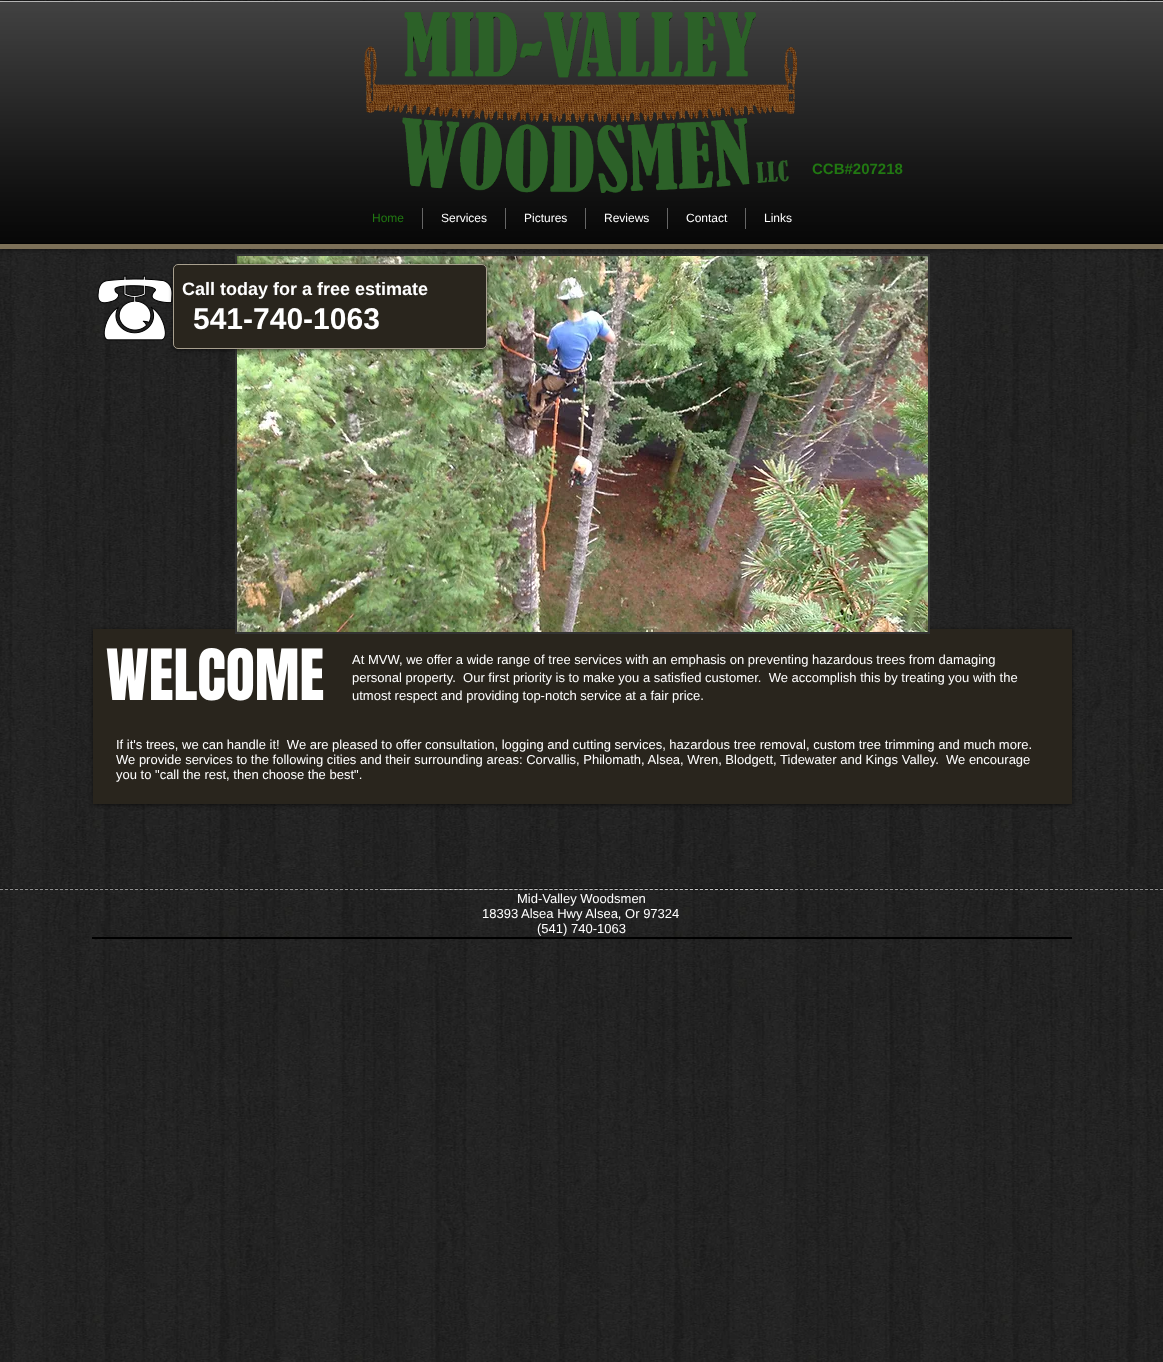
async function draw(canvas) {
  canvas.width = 1163;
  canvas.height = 1362;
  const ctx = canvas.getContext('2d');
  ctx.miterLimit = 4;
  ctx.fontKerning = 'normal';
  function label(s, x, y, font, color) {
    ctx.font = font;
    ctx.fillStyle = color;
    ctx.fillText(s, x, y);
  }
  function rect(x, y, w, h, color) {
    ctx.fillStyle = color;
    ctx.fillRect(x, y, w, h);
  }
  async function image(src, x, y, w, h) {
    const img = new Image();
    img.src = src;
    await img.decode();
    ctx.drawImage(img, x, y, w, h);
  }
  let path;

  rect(0, 0, 1163, 1362, '#fff');
  await image('assets/img1.png', 0, 0, 1163, 1362);
  ctx.fillStyle = '#00000099';
  ctx.filter = 'blur(2.5px)';
  ctx.beginPath();
  ctx.rect(0, 1, 1163, 248);
  ctx.fill();
  ctx.filter = 'none';
  rect(0, 2, 1163, 241, '#000');
  await image('assets/img2.png', 0, 2, 1163, 241);
  rect(0, 243, 1163, 1, '#030303');
  rect(0, 1, 1163, 1, '#b3b3b3');
  rect(0, 244, 1163, 5, '#7c7058');
  await image('assets/img3.png', 364, 12, 433, 181);
  label('CCB#207218', 812, 174, 'bold 15px Liberation Sans', '#217812');
  label('Home', 372, 222, '12px Liberation Sans', '#217812');
  rect(422, 208, 1, 21, '#666');
  label('Services', 441, 222, '12px Liberation Sans', '#fff');
  rect(505, 208, 1, 21, '#666');
  label('Pictures', 524, 222, '12px Liberation Sans', '#fff');
  rect(585, 208, 1, 21, '#666');
  label('Reviews', 604, 222, '12px Liberation Sans', '#fff');
  rect(667, 208, 1, 21, '#666');
  label('Contact', 686, 222, '12px Liberation Sans', '#fff');
  rect(745, 208, 1, 21, '#666');
  label('Links', 764, 222, '12px Liberation Sans', '#fff');
  await image('assets/img4.png', 97, 275, 76, 66);
  ctx.fillStyle = '#00000099';
  ctx.filter = 'blur(2px)';
  ctx.beginPath();
  ctx.rect(93, 630, 979, 175);
  ctx.fill();
  ctx.filter = 'none';
  rect(93, 629, 979, 175, '#29251d');
  rect(235, 254, 695, 380, '#333');
  await image('assets/img5.png', 237, 256, 691, 376);
  ctx.fillStyle = '#00000099';
  ctx.filter = 'blur(2px)';
  ctx.beginPath();
  ctx.roundRect(173, 265, 314, 85, 5);
  ctx.fill();
  ctx.filter = 'none';
  ctx.fillStyle = '#29251d';
  ctx.beginPath();
  ctx.roundRect(173.5, 264.5, 313, 84, 4.5);
  ctx.fill();
  ctx.strokeStyle = '#a8a08f';
  ctx.stroke();
  label('Call today for a free estimate', 182, 295, 'bold 18px Liberation Sans', '#fff');
  label('541-740-1063', 193, 329, 'bold 30px Liberation Sans', '#fff');
  label('WELCOME', 106, 700, '60px Anton', '#fff');
  label('At MVW, we offer a wide range of tree services with an emphasis on preventing hazardous trees from damaging', 352, 664, '13px Liberation Sans', '#fff');
  label('personal property.  Our first priority is to make you a satisfied customer.  We accomplish this by treating you with the', 352, 682, '13px Liberation Sans', '#fff');
  label('utmost respect and providing top-notch service at a fair price.', 352, 700, '13px Liberation Sans', '#fff');
  label('If it\'s trees, we can handle it!  We are pleased to offer consultation, logging and cutting services, hazardous tree removal, custom tree trimming and much more.', 116, 749, '13px Liberation Sans', '#fff');
  label('We provide services to the following cities and their surrounding areas: Corvallis, Philomath, Alsea, Wren, Blodgett, Tidewater and Kings Valley.  We encourage', 116, 764, '13px Liberation Sans', '#fff');
  label('you to "call the rest, then choose the best".', 116, 779, '13px Liberation Sans', '#fff');
  path = new Path2D('M0 888.5H1163');
  ctx.strokeStyle = '#00000059';
  ctx.setLineDash([3, 2]);
  ctx.stroke(path);
  path = new Path2D('M0 889.5H1163');
  ctx.strokeStyle = '#ffffff80';
  ctx.stroke(path);
  path = new Path2D('M383 888.5H783');
  ctx.strokeStyle = '#00000059';
  ctx.setLineDash([3, 2.03]);
  ctx.stroke(path);
  path = new Path2D('M383 889.5H783');
  ctx.strokeStyle = '#ffffff80';
  ctx.stroke(path);
  label('Mid-Valley Woodsmen', 517, 903, '13px Liberation Sans', '#fff');
  label('18393 Alsea Hwy Alsea, Or 97324', 482, 918, '13px Liberation Sans', '#fff');
  label('(541) 740-1063', 537, 933, '13px Liberation Sans', '#fff');
  rect(92, 937, 980, 2, '#000');
}

draw(document.querySelector('canvas'));
